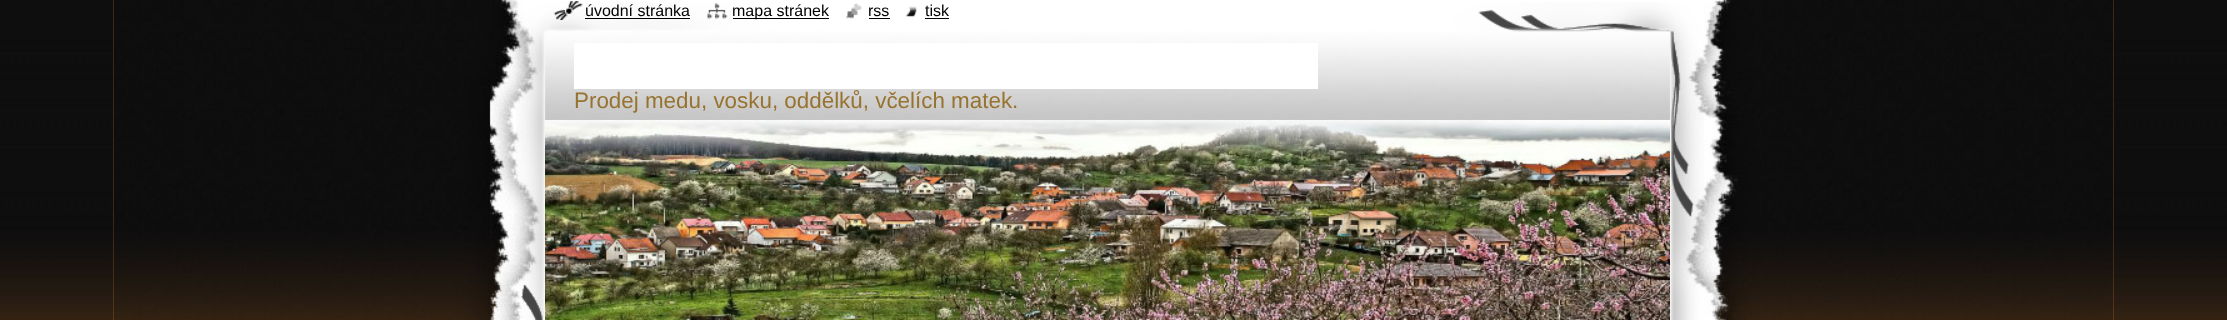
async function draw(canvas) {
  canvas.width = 2227;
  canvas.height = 320;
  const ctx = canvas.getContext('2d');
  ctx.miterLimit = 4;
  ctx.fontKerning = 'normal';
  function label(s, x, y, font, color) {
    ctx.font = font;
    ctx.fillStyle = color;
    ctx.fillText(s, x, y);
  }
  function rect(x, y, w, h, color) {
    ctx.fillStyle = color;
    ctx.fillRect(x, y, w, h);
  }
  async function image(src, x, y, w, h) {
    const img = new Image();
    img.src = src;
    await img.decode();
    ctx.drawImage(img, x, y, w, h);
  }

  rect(0, 0, 2227, 320, '#fff');
  await image('assets/img1.png', 0, 0, 2227, 320);
  await image('assets/img2.png', 113, 0, 2001, 320);
  await image('assets/img3.png', 113, 0, 2001, 320);
  await image('assets/img8.png', 516, 2, 1188, 318);
  await image('assets/img4.png', 553, 1, 30, 19);
  label('úvodní stránka', 585, 16, '16px Liberation Sans', '#000');
  rect(585, 18, 105, 1, '#000');
  await image('assets/img5.png', 707, 2, 21, 17);
  rect(733, 18, 96, 1, '#000');
  label('mapa stránek', 732, 16, '16px Liberation Sans', '#000');
  await image('assets/img6.png', 846, 3, 16, 16);
  label('rss', 868, 16, '16px Liberation Sans', '#000');
  rect(869, 18, 21, 1, '#000');
  await image('assets/img7.png', 906, 6, 11, 11);
  label('tisk', 925, 16, '16px Liberation Sans', '#000');
  rect(925, 18, 24, 1, '#000');
  rect(574, 43, 744, 46, '#fff');
  label('Prodej medu, vosku, oddělků, včelích matek.', 574, 108, '22.4px Liberation Sans', '#977330');
  await image('assets/img9.png', 545, 120, 1125, 200);
}

draw(document.querySelector('canvas'));
